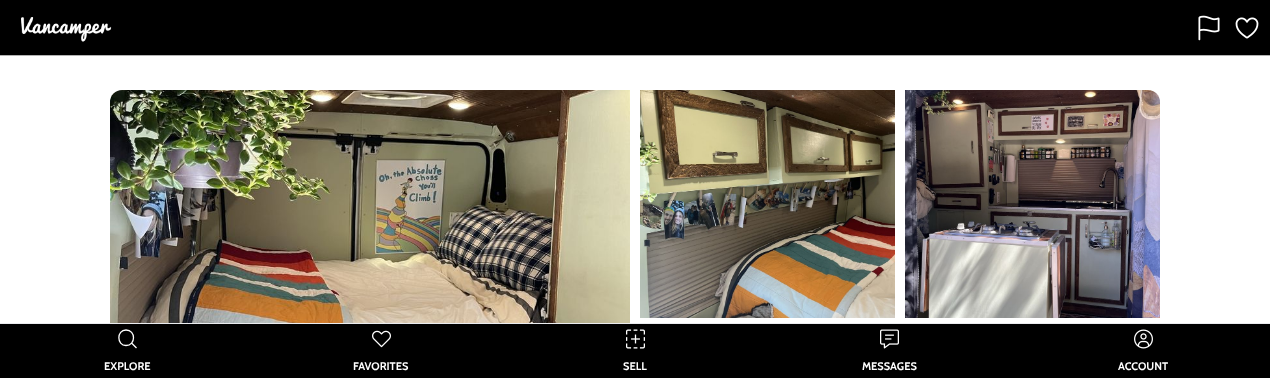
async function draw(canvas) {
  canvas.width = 1270;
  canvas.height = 378;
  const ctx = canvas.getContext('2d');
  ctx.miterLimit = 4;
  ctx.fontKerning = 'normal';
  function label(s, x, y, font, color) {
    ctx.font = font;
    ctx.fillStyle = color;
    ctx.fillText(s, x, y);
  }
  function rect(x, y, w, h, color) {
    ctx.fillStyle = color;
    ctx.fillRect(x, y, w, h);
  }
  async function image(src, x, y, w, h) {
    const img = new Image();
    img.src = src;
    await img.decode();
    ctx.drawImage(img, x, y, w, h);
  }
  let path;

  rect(0, 0, 1270, 378, '#fff');
  rect(0, 0, 1270, 55, '#000');
  rect(0, 55, 1270, 1, '#b2b2b2');
  await image('assets/img1.png', 21, 17, 91, 25);
  await image('assets/img2.png', 1198, 15, 22, 26);
  await image('assets/img3.png', 1235, 17, 24, 22);
  await image('assets/img4.png', 110, 90, 520, 233);
  await image('assets/img5.png', 640, 90, 255, 228);
  await image('assets/img6.png', 905, 90, 255, 228);
  rect(0, 324, 1270, 54, '#000');
  rect(0, 323, 1270, 1, '#eaecef');
  path = new Path2D('M136.5 348L131.5 343M126 345.5C116.5 345.5 116.5 330 126 330C136 330 136 345.5 126 345.5Z');
  ctx.strokeStyle = '#fff';
  ctx.lineWidth = 1.3;
  ctx.stroke(path);
  label('EXPLORE', 104, 370, 'bold 11px Cabin', '#fff');
  await image('assets/img7.png', 372, 330, 19, 18);
  label('FAVORITES', 353, 370, 'bold 11px Cabin', '#fff');
  await image('assets/img8.png', 626, 329, 19, 20);
  label('SELL', 623, 370, 'bold 11px Cabin', '#fff');
  await image('assets/img9.png', 880, 329, 19, 20);
  label('MESSAGES', 862, 370, 'bold 11px Cabin', '#fff');
  await image('assets/img10.png', 1134, 329, 19, 20);
  label('ACCOUNT', 1118, 370, 'bold 11px Cabin', '#fff');
}

draw(document.querySelector('canvas'));
